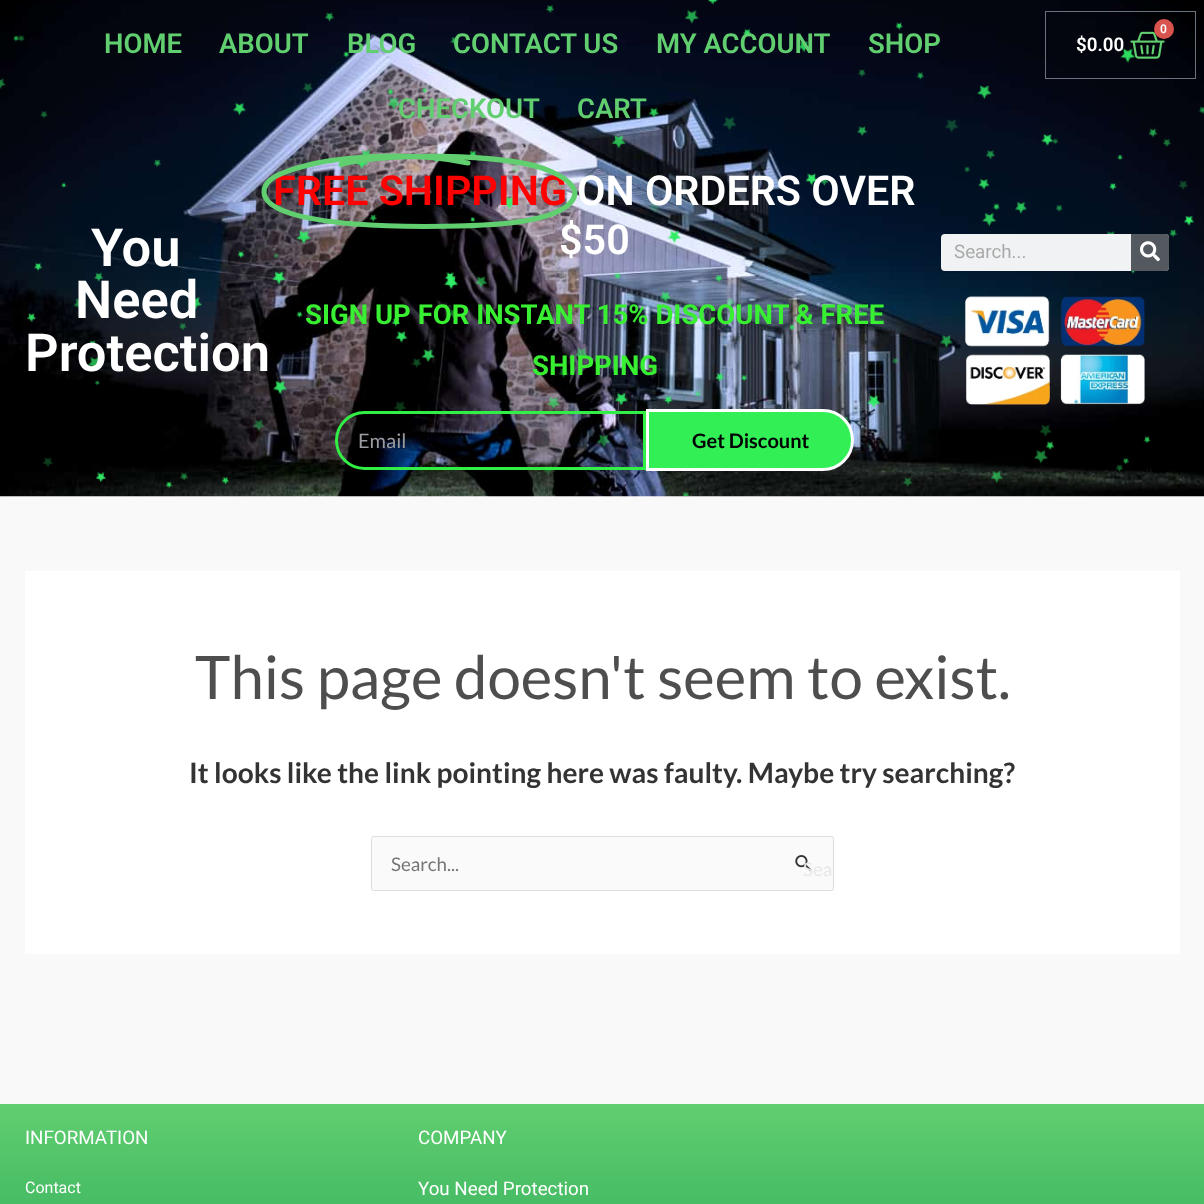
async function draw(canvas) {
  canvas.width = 1204;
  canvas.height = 1204;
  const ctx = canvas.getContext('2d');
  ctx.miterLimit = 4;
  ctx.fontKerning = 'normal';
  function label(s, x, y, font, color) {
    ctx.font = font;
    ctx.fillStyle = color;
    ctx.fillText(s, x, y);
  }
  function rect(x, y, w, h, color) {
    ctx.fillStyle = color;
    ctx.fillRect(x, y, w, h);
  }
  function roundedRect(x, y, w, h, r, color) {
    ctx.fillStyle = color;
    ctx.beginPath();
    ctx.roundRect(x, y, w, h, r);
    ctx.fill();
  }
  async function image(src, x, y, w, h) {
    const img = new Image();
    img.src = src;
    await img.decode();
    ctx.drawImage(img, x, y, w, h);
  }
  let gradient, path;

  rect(0, 0, 1204, 1204, '#f9f9f9');
  await image('assets/img1.png', 0, 0, 1204, 497);
  await image('assets/img2.png', 0, 0, 1204, 496);
  label('HOME', 104, 53, '600 27.5px Roboto', '#61ce70');
  label('ABOUT', 219, 53, '600 27.5px Roboto', '#61ce70');
  label('BLOG', 347, 53, '600 27.5px Roboto', '#61ce70');
  label('CONTACT US', 453, 53, '600 27.5px Roboto', '#61ce70');
  label('MY ACCOUNT', 656, 53, '600 27.5px Roboto', '#61ce70');
  label('SHOP', 868, 53, '600 27.5px Roboto', '#61ce70');
  label('CHECKOUT', 398, 118, '600 27.5px Roboto', '#61ce70');
  label('CART', 577, 118, '600 27.5px Roboto', '#61ce70');
  ctx.strokeStyle = '#69727d';
  ctx.strokeRect(1045.5, 11.5, 150, 67);
  await image('assets/img3.png', 1130, 31, 35, 28);
  ctx.fillStyle = '#d9534f';
  ctx.beginPath();
  ctx.arc(1164, 29, 10, 0, 2 * Math.PI);
  ctx.fill();
  label('0', 1160, 33, '600 12px Roboto', '#fff');
  label('$0.00', 1076, 51, '600 18.75px Roboto', '#fff');
  label('You', 91, 266, '600 52.5px Roboto', '#fff');
  label('Need', 75, 318, '600 52.5px Roboto', '#fff');
  label('Protection', 25, 371, '600 52.5px Roboto', '#fff');
  label('FREE SHIPPING', 273, 205, '600 41.25px Roboto', '#ff0101');
  label('$50', 559, 254, '600 41.25px Roboto', '#fff');
  path = new Path2D('M468 163C406.5 150 336 158 310.5 164.5C275 173 263.5 181 264 192.5C265 208.5 297.5 219.5 355 224C397.5 227.5 490.5 228 529.5 220C570.5 212 596 191.5 551 171.5C507 151.5 375 153.5 341 164.5');
  ctx.strokeStyle = '#61ce70';
  ctx.lineWidth = 5.1;
  ctx.lineCap = 'round';
  ctx.lineJoin = 'round';
  ctx.stroke(path);
  label('ON ORDERS OVER', 577, 205, '600 41.25px Roboto', '#fff');
  label('SIGN UP FOR INSTANT 15% DISCOUNT & FREE', 305, 324, 'bold 27.5px Roboto', '#38ef32');
  label('SHIPPING', 532, 375, 'bold 27.5px Roboto', '#38ef32');
  ctx.beginPath();
  ctx.roundRect(336.5, 412.5, 308, 56, [28, 0, 0, 28]);
  ctx.strokeStyle = '#32ef45';
  ctx.lineWidth = 3;
  ctx.lineJoin = 'miter';
  ctx.stroke();
  label('Email', 358, 448, '20px Lato', '#9a9ca1');
  ctx.fillStyle = '#32ef55';
  ctx.beginPath();
  ctx.roundRect(647.5, 410.5, 205, 59, [0, 29.5, 29.5, 0]);
  ctx.fill();
  ctx.strokeStyle = '#fff';
  ctx.stroke();
  label('Get Discount', 692, 448, 'bold 20px Lato', '#000');
  roundedRect(941, 234, 228, 37, 4, '#f1f2f3');
  label('Search...', 954, 258, '18.75px Roboto', '#aaa');
  ctx.fillStyle = '#54595f';
  ctx.beginPath();
  ctx.roundRect(1131, 234, 38, 37, [0, 4, 4, 0]);
  ctx.fill();
  await image('assets/img4.png', 1140, 241, 20, 21);
  await image('assets/img5.png', 965, 296, 180, 109);
  rect(25, 571, 1155, 383, '#fff');
  label('This page doesn\'t seem to exist.', 195, 699, '60px Lato', '#4e4e4e');
  label('It looks like the link pointing here was faulty. Maybe try searching?', 189, 783, 'bold 28.1px Lato', '#333');
  ctx.fillStyle = '#fafafa';
  ctx.beginPath();
  ctx.roundRect(371.5, 836.5, 462, 54, 2);
  ctx.fill();
  ctx.strokeStyle = '#ddd';
  ctx.lineWidth = 1;
  ctx.stroke();
  label('Search...', 391, 871, '18.75px Lato', '#757575');
  await image('assets/img6.png', 795, 855, 17, 17);
  label('Sea', 803, 876, '18.75px Lato', '#e7e7e7');
  gradient = ctx.createLinearGradient(603, 1104, 603, 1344);
  gradient.addColorStop(0, '#61ce70');
  gradient.addColorStop(1, '#23a455');
  ctx.fillStyle = gradient;
  ctx.fillRect(0, 1104, 1204, 100);
  label('INFORMATION', 25, 1144, '18.75px Roboto', '#fff');
  label('Contact', 25, 1193, '16px Roboto', '#fff');
  label('COMPANY', 418, 1144, '18.75px Roboto', '#fff');
  label('You Need Protection', 418, 1195, '18.75px Roboto', '#fff');
}

draw(document.querySelector('canvas'));
